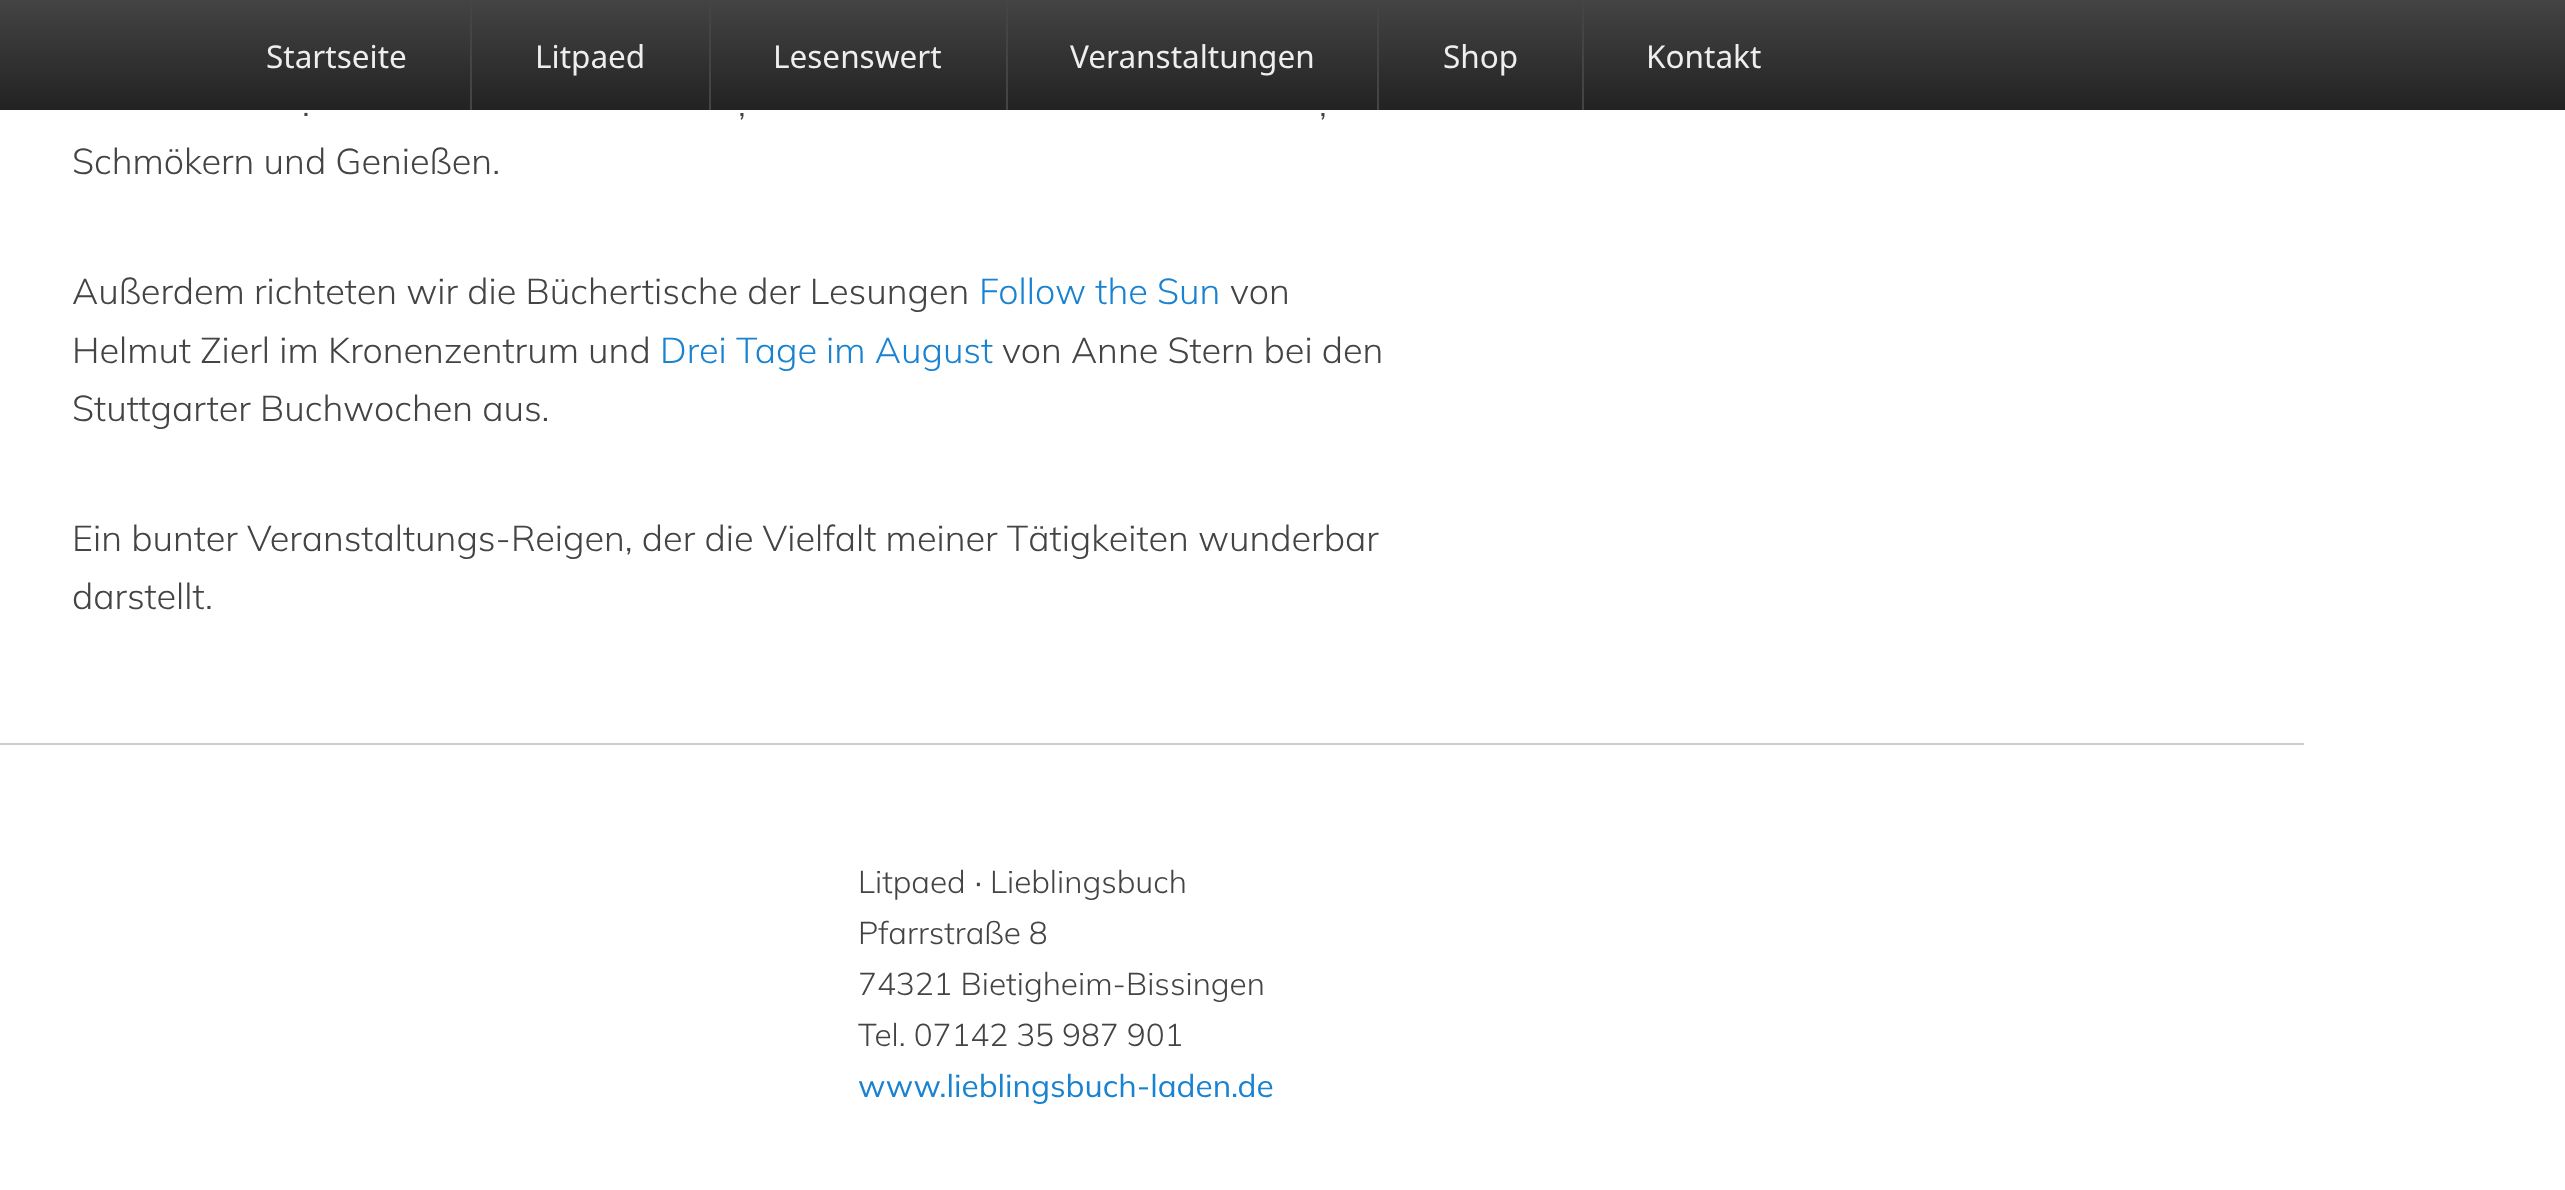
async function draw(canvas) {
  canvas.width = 2565;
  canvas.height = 1190;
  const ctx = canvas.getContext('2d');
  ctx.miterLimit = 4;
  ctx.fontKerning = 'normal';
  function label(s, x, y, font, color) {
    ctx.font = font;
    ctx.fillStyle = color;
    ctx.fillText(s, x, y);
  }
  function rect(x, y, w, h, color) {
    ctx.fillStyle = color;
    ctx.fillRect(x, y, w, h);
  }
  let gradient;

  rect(0, 0, 2565, 1190, '#fff');
  gradient = ctx.createLinearGradient(1283, 0, 1283, 110);
  gradient.addColorStop(0, '#444');
  gradient.addColorStop(1, '#222');
  ctx.fillStyle = gradient;
  ctx.fillRect(0, 0, 2565, 110);
  rect(470, 0, 2, 110, '#444');
  label('Startseite', 266, 68, '31.5px Noto Sans', '#eee');
  rect(709, 0, 2, 110, '#444');
  label('Litpaed', 535, 68, '31.5px Noto Sans', '#eee');
  rect(1006, 0, 2, 110, '#444');
  label('Lesenswert', 773, 68, '31.5px Noto Sans', '#eee');
  rect(1377, 0, 2, 110, '#444');
  label('Veranstaltungen', 1070, 68, '31.5px Noto Sans', '#eee');
  rect(1582, 0, 2, 110, '#444');
  label('Shop', 1443, 68, '31.5px Noto Sans', '#eee');
  label('Kontakt', 1646, 68, '31.5px Noto Sans', '#eee');
  label('.', 302, 116, '200 36px Mulish', '#444');
  label(',', 738, 116, '200 36px Mulish', '#444');
  label(',', 1319, 116, '200 36px Mulish', '#444');
  label('Schmökern und Genießen.', 72, 174, '200 36px Mulish', '#444');
  label('Außerdem richteten wir die Büchertische der Lesungen', 72, 304, '200 36px Mulish', '#444');
  label('Follow the Sun', 979, 304, '200 36px Mulish', '#1982d1');
  label('von', 1230, 304, '200 36px Mulish', '#444');
  label('Helmut Zierl im Kronenzentrum und', 72, 363, '200 36px Mulish', '#444');
  label('Drei Tage im August', 660, 363, '200 36px Mulish', '#1982d1');
  label('von Anne Stern bei den', 1002, 363, '200 36px Mulish', '#444');
  label('Stuttgarter Buchwochen aus.', 72, 421, '200 36px Mulish', '#444');
  label('Ein bunter Veranstaltungs-Reigen, der die Vielfalt meiner Tätigkeiten wunderbar', 72, 551, '200 36px Mulish', '#444');
  label('darstellt.', 72, 609, '200 36px Mulish', '#444');
  rect(0, 743, 2304, 2, '#ccc');
  label('Litpaed', 858, 893, '200 31.5px Mulish', '#444');
  label('∙', 974, 893, '31.5px Liberation Sans', '#444');
  label('Lieblingsbuch', 990, 893, '200 31.5px Mulish', '#444');
  label('Pfarrstraße 8', 858, 944, '200 31.5px Mulish', '#444');
  label('74321 Bietigheim-Bissingen', 858, 995, '200 31.5px Mulish', '#444');
  label('Tel. 07142 35 987 901', 858, 1046, '200 31.5px Mulish', '#444');
  label('www.lieblingsbuch-laden.de', 858, 1097, '200 31.5px "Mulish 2"', '#1982d1');
}

draw(document.querySelector('canvas'));
